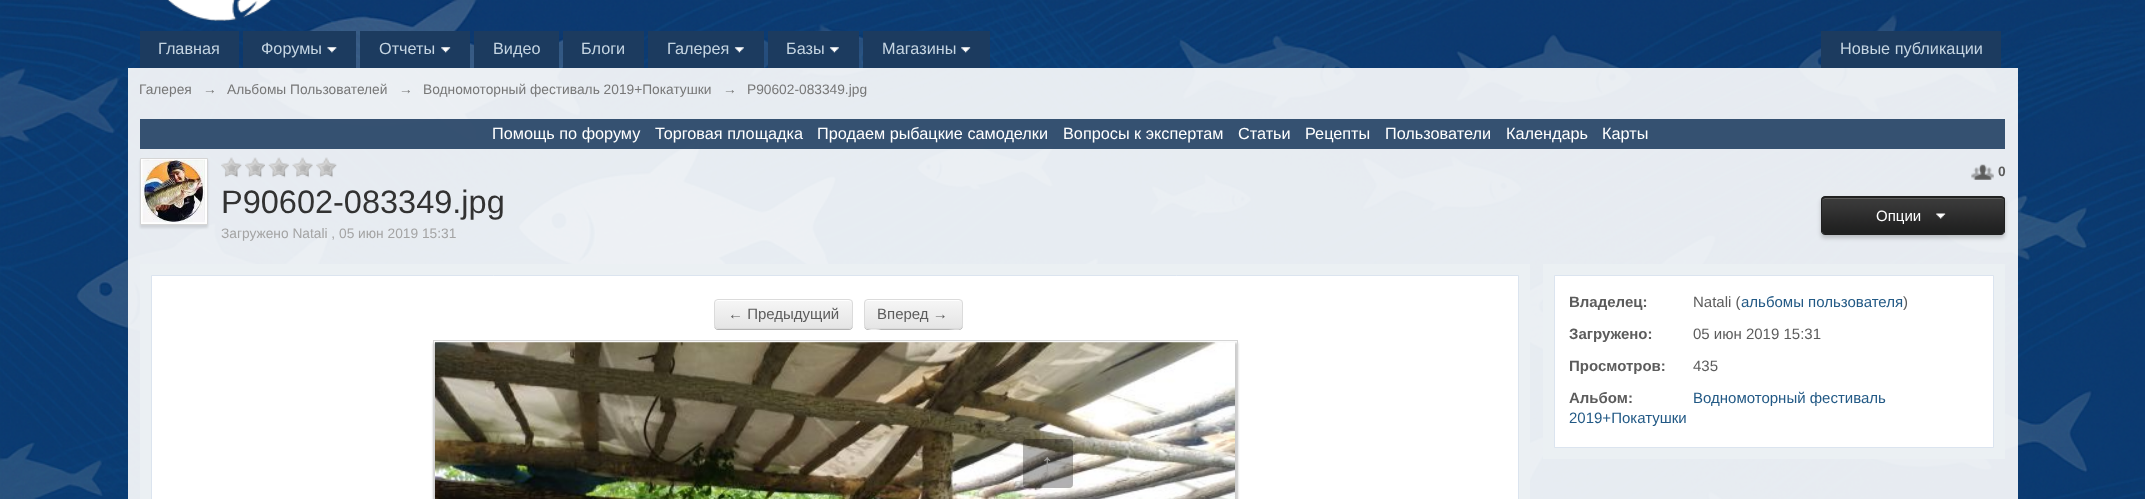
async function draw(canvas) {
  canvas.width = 2145;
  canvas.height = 499;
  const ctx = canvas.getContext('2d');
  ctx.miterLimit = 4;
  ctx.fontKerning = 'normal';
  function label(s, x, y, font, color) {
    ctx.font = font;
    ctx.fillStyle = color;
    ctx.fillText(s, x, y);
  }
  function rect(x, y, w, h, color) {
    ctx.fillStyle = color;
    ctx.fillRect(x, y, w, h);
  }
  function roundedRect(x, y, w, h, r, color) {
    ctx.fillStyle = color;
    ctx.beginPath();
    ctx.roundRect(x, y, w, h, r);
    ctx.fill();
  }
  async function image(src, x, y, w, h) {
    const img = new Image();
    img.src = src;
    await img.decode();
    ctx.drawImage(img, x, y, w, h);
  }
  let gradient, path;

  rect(0, 0, 2145, 499, '#fff');
  await image('assets/img1.png', 0, 0, 2145, 499);
  await image('assets/img2.png', 167, 0, 105, 21);
  rect(140, 31, 99, 37, '#1c3b5f');
  label('Главная', 158, 54, '16.25px Liberation Sans', '#c5d5e2');
  rect(243, 31, 113, 37, '#1c3b5f');
  label('Форумы', 261, 54, '16.25px Liberation Sans', '#c5d5e2');
  await image('assets/img3.png', 327, 47, 10, 6);
  rect(360, 31, 110, 37, '#1c3b5f');
  label('Отчеты', 379, 54, '16.25px Liberation Sans', '#c5d5e2');
  await image('assets/img4.png', 441, 47, 10, 6);
  rect(474, 31, 85, 37, '#1c3b5f');
  label('Видео', 493, 54, '16.25px Liberation Sans', '#c5d5e2');
  rect(563, 31, 81, 37, '#1c3b5f');
  label('Блоги', 581, 54, '16.25px Liberation Sans', '#c5d5e2');
  rect(648, 31, 116, 37, '#1c3b5f');
  label('Галерея', 667, 54, '16.25px Liberation Sans', '#c5d5e2');
  await image('assets/img5.png', 734, 47, 10, 6);
  rect(768, 31, 91, 37, '#1c3b5f');
  label('Базы', 786, 54, '16.25px Liberation Sans', '#c5d5e2');
  await image('assets/img5.png', 829, 47, 10, 6);
  rect(863, 31, 127, 37, '#1c3b5f');
  label('Магазины', 882, 54, '16.25px Liberation Sans', '#c5d5e2');
  await image('assets/img4.png', 961, 47, 10, 6);
  rect(1821, 31, 180, 37, '#1c3b5f');
  label('Новые публикации', 1840, 54, '16.25px Liberation Sans', '#c5d5e2');
  rect(128, 68, 1890, 431, '#ffffffe6');
  label('Галерея', 139, 94, '13.75px Liberation Sans', '#777');
  label('→', 203, 94, '13.75px Liberation Sans', '#777');
  label('Альбомы Пользователей', 227, 94, '13.75px Liberation Sans', '#777');
  label('→', 399, 94, '13.75px Liberation Sans', '#777');
  label('Водномоторный фестиваль 2019+Покатушки', 423, 94, '13.75px Liberation Sans', '#777');
  label('→', 723, 94, '13.75px Liberation Sans', '#777');
  label('P90602-083349.jpg', 747, 94, '13.75px Liberation Sans', '#777');
  rect(140, 119, 1865, 30, '#1c3b5fe0');
  label('Помощь по форуму', 492, 139, '16.25px Liberation Sans', '#fff');
  label('Торговая площадка', 655, 139, '16.25px Liberation Sans', '#fff');
  label('Продаем рыбацкие самоделки', 817, 139, '16.25px Liberation Sans', '#fff');
  label('Вопросы к экспертам', 1063, 139, '16.25px Liberation Sans', '#fff');
  label('Статьи', 1238, 139, '16.25px Liberation Sans', '#fff');
  label('Рецепты', 1305, 139, '16.25px Liberation Sans', '#fff');
  label('Пользователи', 1385, 139, '16.25px Liberation Sans', '#fff');
  label('Календарь', 1506, 139, '16.25px Liberation Sans', '#fff');
  label('Карты', 1602, 139, '16.25px Liberation Sans', '#fff');
  ctx.fillStyle = '#0000001a';
  ctx.filter = 'blur(1px)';
  ctx.beginPath();
  ctx.rect(140, 160, 68, 68);
  ctx.fill();
  ctx.filter = 'none';
  ctx.fillStyle = '#fff';
  ctx.beginPath();
  ctx.rect(140.5, 158.5, 67, 66);
  ctx.fill();
  ctx.strokeStyle = '#d5d5d5';
  ctx.stroke();
  await image('assets/img6.png', 142, 159, 63, 64);
  await image('assets/img7.png', 221, 157, 21, 21);
  await image('assets/img8.png', 245, 157, 20, 21);
  await image('assets/img9.png', 268, 157, 21, 21);
  await image('assets/img10.png', 292, 157, 21, 21);
  await image('assets/img11.png', 316, 157, 21, 21);
  label('P90602-083349.jpg', 221, 213, '32.5px Liberation Sans', '#323232');
  label('Загружено Natali , 05 июн 2019 15:31', 221, 238, '13.75px Liberation Sans', '#a4a4a4');
  await image('assets/img12.png', 1971, 164, 23, 16);
  label('0', 1998, 176, 'bold 13.75px Liberation Sans', '#5c5c5c');
  ctx.fillStyle = '#00000033';
  ctx.filter = 'blur(2px)';
  ctx.beginPath();
  ctx.roundRect(1821, 199, 184, 39, 4);
  ctx.fill();
  ctx.filter = 'none';
  ctx.fillStyle = '#212121';
  path = new Path2D('M1825 198H2001C2003 198 2004 199 2004 200V231C2004 233 2003 235 2001 235H1825C1824 235 1822 233 1822 231V200C1822 199 1824 198 1825 198Z');
  ctx.fill(path);
  await image('assets/img13.png', 1821, 197, 184, 36);
  ctx.fillStyle = '#5c5c5c';
  path = new Path2D('M1825 199H2002L2004 200C2004 199 2003 198 2001 198H1825L1823 199L1822 200Z');
  ctx.fill(path);
  ctx.fillStyle = '#212121';
  path = new Path2D('M1825 196H2001C2003 196 2005 198 2005 200V231C2005 233 2003 235 2001 235H1825C1823 235 1821 233 1821 231V200C1821 198 1823 196 1825 196ZM1825 198H2001C2003 198 2004 199 2004 200V231C2004 233 2003 235 2001 235H1825C1824 235 1822 233 1822 231V200C1822 199 1824 198 1825 198Z');
  ctx.fill(path, 'evenodd');
  label('Опции', 1876, 221, '15px Liberation Sans', '#fff');
  await image('assets/img14.png', 1936, 213, 10, 6);
  rect(140, 264, 1390, 235, '#ebf0f3');
  ctx.fillStyle = '#fff';
  ctx.beginPath();
  ctx.rect(151.5, 275.5, 1367, 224);
  ctx.fill();
  ctx.strokeStyle = '#dbe4ef';
  ctx.stroke();
  ctx.fillStyle = '#b3b3b3';
  path = new Path2D('M714 326C714 328 716 330 718 330H849C851 330 853 328 853 326V304L852 302V325C852 327 851 329 849 329H718C716 329 715 328 714 326Z');
  ctx.fill(path);
  ctx.save();
  ctx.beginPath();
  ctx.roundRect(714, 299, 139, 30, 4);
  ctx.clip();
  gradient = ctx.createLinearGradient(715, 300, 715, 328);
  gradient.addColorStop(0, '#f6f6f6');
  gradient.addColorStop(1, '#e5e5e5');
  ctx.fillStyle = gradient;
  ctx.fillRect(714, 300, 139, 28);
  ctx.restore();
  ctx.fillStyle = '#fff';
  path = new Path2D('M718 301H849C850 301 851 302 851 304V302C851 301 850 300 848 300H718C716 300 715 301 715 302V304C715 302 716 301 718 301Z');
  ctx.fill(path);
  ctx.beginPath();
  ctx.roundRect(714.5, 299.5, 138, 29, 3.5);
  ctx.strokeStyle = '#dbdbdb';
  ctx.stroke();
  label('← Предыдущий', 728, 319, '15px Liberation Sans', '#5c5c5c');
  ctx.fillStyle = '#b3b3b3';
  path = new Path2D('M864 326C864 328 866 330 868 330H959C961 330 963 328 963 326V304L962 302V318C962 333 962 329 944 329H883C879 329 866 332 864 326Z');
  ctx.fill(path);
  ctx.save();
  ctx.beginPath();
  ctx.roundRect(864, 299, 99, 30, 4);
  ctx.clip();
  gradient = ctx.createLinearGradient(865, 300, 865, 328);
  gradient.addColorStop(0, '#f6f6f6');
  gradient.addColorStop(1, '#e5e5e5');
  ctx.fillStyle = gradient;
  ctx.fillRect(864, 300, 99, 28);
  ctx.restore();
  ctx.fillStyle = '#fff';
  path = new Path2D('M868 301H959C960 301 961 302 961 304C961 296 949 300 943 300H883C877 300 865 296 865 304C865 302 866 301 868 301Z');
  ctx.fill(path);
  ctx.beginPath();
  ctx.roundRect(864.5, 299.5, 98, 29, 3.5);
  ctx.stroke();
  label('Вперед →', 877, 319, '15px Liberation Sans', '#5c5c5c');
  ctx.fillStyle = '#00000033';
  ctx.filter = 'blur(1px)';
  ctx.beginPath();
  ctx.rect(433, 343, 805, 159);
  ctx.fill();
  ctx.filter = 'none';
  ctx.strokeStyle = '#d5d5d5';
  ctx.strokeRect(433.5, 340.5, 804, 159);
  await image('assets/img15.png', 435, 342, 800, 157);
  rect(1543, 264, 462, 195, '#ebf0f3');
  ctx.fillStyle = '#fff';
  ctx.beginPath();
  ctx.rect(1554.5, 275.5, 439, 172);
  ctx.fill();
  ctx.strokeStyle = '#dbe4ef';
  ctx.stroke();
  label('Владелец:', 1569, 307, 'bold 15px Liberation Sans', '#5c5c5c');
  label('Natali (', 1693, 307, '15px Liberation Sans', '#5c5c5c');
  label('альбомы пользователя', 1741, 307, '15px Liberation Sans', '#225985');
  label(')', 1903, 307, '15px Liberation Sans', '#5c5c5c');
  label('Загружено:', 1569, 339, 'bold 15px Liberation Sans', '#5c5c5c');
  label('05 июн 2019 15:31', 1693, 339, '15px Liberation Sans', '#5c5c5c');
  label('Просмотров:', 1569, 371, 'bold 15px Liberation Sans', '#5c5c5c');
  label('435', 1693, 371, '15px Liberation Sans', '#5c5c5c');
  label('Альбом:', 1569, 403, 'bold 15px Liberation Sans', '#5c5c5c');
  label('Водномоторный фестиваль', 1693, 403, '15px Liberation Sans', '#225985');
  label('2019+Покатушки', 1569, 423, '15px Liberation Sans', '#225985');
  roundedRect(1023, 439, 50, 49, 4, '#0000004d');
  label('↑', 1041, 471, '25px Liberation Sans', '#a09f9d');
}

draw(document.querySelector('canvas'));
